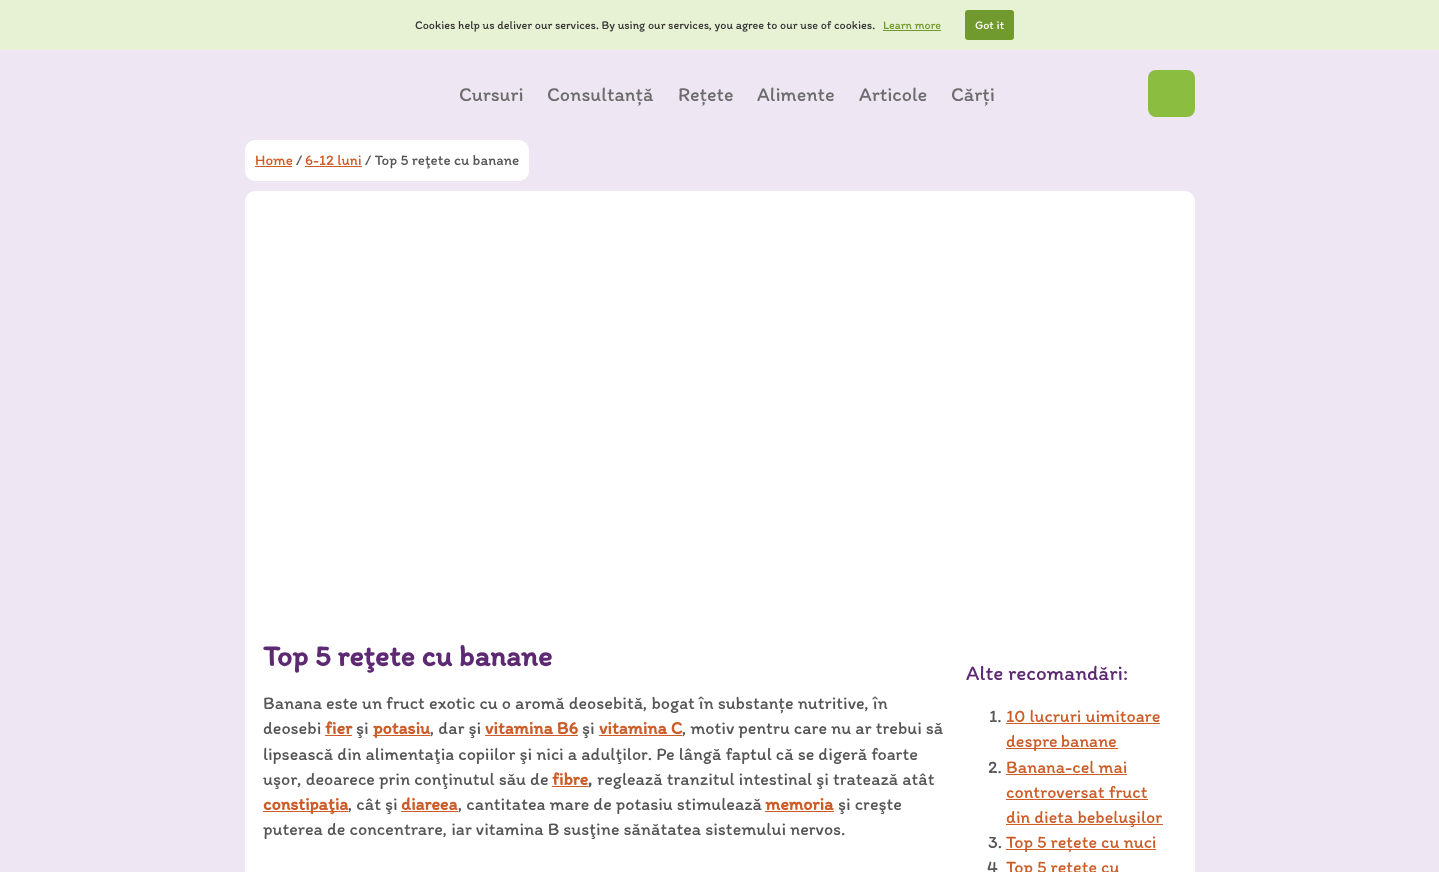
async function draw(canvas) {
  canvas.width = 1439;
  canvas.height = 872;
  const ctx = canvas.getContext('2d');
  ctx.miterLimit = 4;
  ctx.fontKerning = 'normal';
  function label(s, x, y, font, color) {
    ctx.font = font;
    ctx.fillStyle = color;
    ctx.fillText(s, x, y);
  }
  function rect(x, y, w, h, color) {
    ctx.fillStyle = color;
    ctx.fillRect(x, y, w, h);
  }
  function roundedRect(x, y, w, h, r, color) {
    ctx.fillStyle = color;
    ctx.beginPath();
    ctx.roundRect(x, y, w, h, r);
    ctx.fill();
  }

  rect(0, 0, 1439, 872, '#eee6f2');
  rect(0, 0, 1439, 50, '#e7f2d5');
  label('Cookies help us deliver our services. By using our services, you agree to our use of cookies.', 415, 29, '12px Itim', '#333');
  label('Learn more', 883, 29, '12px Itim', '#719a2e');
  rect(883, 30, 58, 1, '#719a2e');
  roundedRect(965, 10, 49, 30, 3, '#719a2e');
  label('Got it', 975, 29, '12px Itim', '#fff');
  label('Cursuri', 459, 101, '20px Itim', '#6c6c6c');
  label('Consultanță', 547, 101, '20px Itim', '#6c6c6c');
  label('Rețete', 678, 101, '20px Itim', '#6c6c6c');
  label('Alimente', 757, 101, '20px Itim', '#6c6c6c');
  label('Articole', 859, 101, '20px Itim', '#6c6c6c');
  label('Cărți', 951, 101, '20px Itim', '#6c6c6c');
  roundedRect(1148, 70, 47, 47, 8, '#8bbd40');
  roundedRect(245, 140, 284, 41, 10, '#fff');
  label('Home', 255, 165, '15px Itim', '#cd5d28');
  rect(255, 166, 37, 1, '#cd5d28');
  label('/', 296, 165, '15px Itim', '#555');
  label('6-12 luni', 305, 165, '15px Itim', '#cd5d28');
  rect(305, 166, 57, 1, '#cd5d28');
  label('/ Top 5 reţete cu banane', 365, 165, '15px Itim', '#555');
  roundedRect(245, 191, 950, 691, 10, '#fff');
  label('Top 5 reţete cu banane', 263, 666, 'bold 30px Itim', '#5d2972');
  label('Banana este un fruct exotic cu o aromă deosebită, bogat în substanțe nutritive, în', 263, 709, '18px Itim', '#555');
  label('deosebi', 263, 734, '18px Itim', '#555');
  label('fier', 325, 734, 'bold 18px Itim', '#cd5d28');
  rect(325, 735, 27, 1, '#cd5d28');
  label('şi', 356, 734, '18px Itim', '#555');
  rect(373, 735, 57, 1, '#cd5d28');
  label('potasiu', 373, 734, 'bold 18px Itim', '#cd5d28');
  label(', dar şi', 430, 734, '18px Itim', '#555');
  label('vitamina B6', 485, 734, 'bold 18px Itim', '#cd5d28');
  rect(485, 735, 93, 1, '#cd5d28');
  label('şi', 582, 734, '18px Itim', '#555');
  label('vitamina C', 599, 734, 'bold 18px Itim', '#cd5d28');
  rect(599, 735, 83, 1, '#cd5d28');
  label(', motiv pentru care nu ar trebui să', 682, 734, '18px Itim', '#555');
  label('lipsească din alimentaţia copiilor şi nici a adulţilor. Pe lângă faptul că se digeră foarte', 263, 760, '18px Itim', '#555');
  label('uşor, deoarece prin conţinutul său de', 263, 785, '18px Itim', '#555');
  label('fibre', 552, 785, 'bold 18px Itim', '#cd5d28');
  label(',', 588, 785, 'bold 18px Itim', '#555');
  rect(552, 786, 36, 1, '#cd5d28');
  label('reglează tranzitul intestinal şi tratează atât', 597, 785, '18px Itim', '#555');
  rect(263, 811, 85, 1, '#cd5d28');
  label('constipaţia', 263, 810, 'bold 18px Itim', '#cd5d28');
  label(', cât şi', 348, 810, '18px Itim', '#555');
  label('diareea', 401, 810, 'bold 18px Itim', '#cd5d28');
  rect(401, 811, 57, 1, '#cd5d28');
  label(', cantitatea mare de potasiu stimulează', 458, 810, '18px Itim', '#555');
  label('memoria', 765, 810, 'bold 18px Itim', '#cd5d28');
  rect(765, 811, 69, 1, '#cd5d28');
  label('şi creşte', 838, 810, '18px Itim', '#555');
  label('puterea de concentrare, iar vitamina B susţine sănătatea sistemului nervos.', 263, 835, '18px Itim', '#555');
  label('Alte recomandări:', 966, 680, '21px Itim', '#5d2972');
  label('1.', 989, 722, '18px Itim', '#555');
  label('10 lucruri uimitoare', 1006, 722, '18px Itim', '#cd5d28');
  rect(1006, 723, 154, 1, '#cd5d28');
  rect(1006, 748, 112, 1, '#cd5d28');
  ctx.wordSpacing = '-1px';
  label('despre banane', 1006, 747, '18px Itim', '#cd5d28');
  ctx.wordSpacing = '0px';
  label('2.', 988, 773, '18px Itim', '#555');
  label('Banana-cel mai', 1006, 773, '18px Itim', '#cd5d28');
  rect(1006, 774, 121, 1, '#cd5d28');
  label('controversat fruct', 1006, 798, '18px Itim', '#cd5d28');
  rect(1006, 799, 142, 1, '#cd5d28');
  rect(1006, 824, 157, 1, '#cd5d28');
  label('din dieta bebeluşilor', 1006, 823, '18px Itim', '#cd5d28');
  label('3.', 988, 848, '18px Itim', '#555');
  rect(1006, 849, 150, 1, '#cd5d28');
  label('Top 5 rețete cu nuci', 1006, 848, '18px Itim', '#cd5d28');
  label('4', 987, 873, '18px Itim', '#555');
  label('Top 5 reţete cu', 1006, 873, '18px Itim', '#cd5d28');
}

draw(document.querySelector('canvas'));
